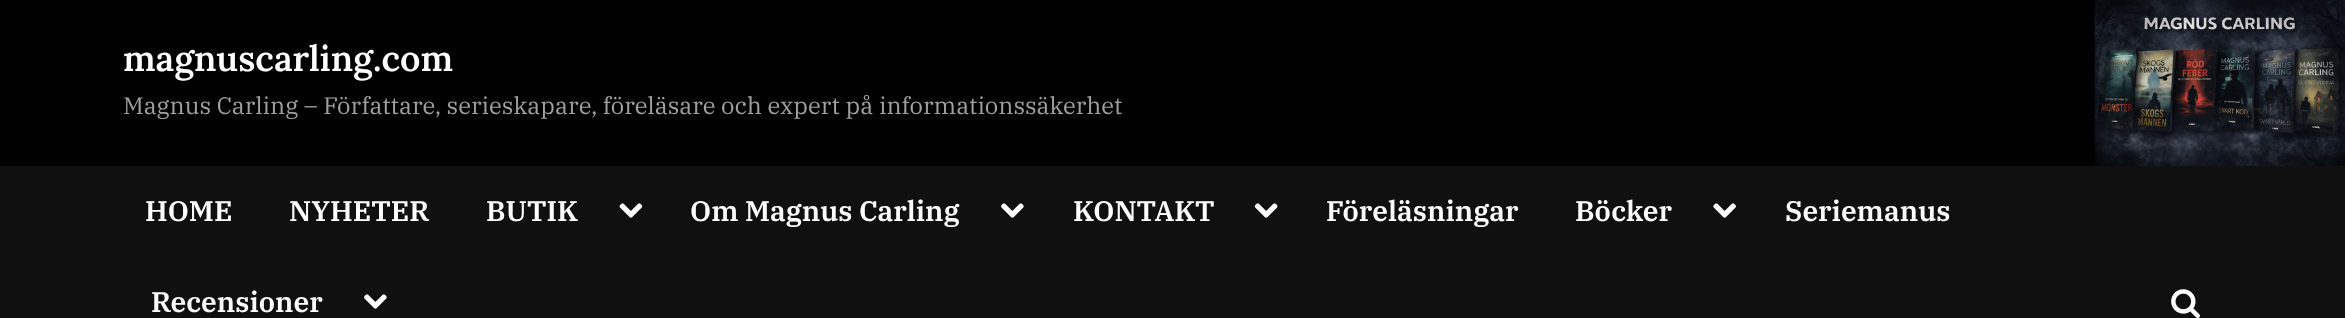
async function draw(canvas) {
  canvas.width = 2345;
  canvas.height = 318;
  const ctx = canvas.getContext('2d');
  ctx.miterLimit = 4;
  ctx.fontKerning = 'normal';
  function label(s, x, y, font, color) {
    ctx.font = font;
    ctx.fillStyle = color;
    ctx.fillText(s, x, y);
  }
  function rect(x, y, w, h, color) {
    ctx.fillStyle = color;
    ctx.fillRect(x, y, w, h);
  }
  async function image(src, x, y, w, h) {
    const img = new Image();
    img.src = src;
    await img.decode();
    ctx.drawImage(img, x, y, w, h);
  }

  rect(0, 0, 2345, 318, '#000');
  await image('assets/img1.png', 2094, 0, 251, 167);
  label('magnuscarling.com', 123, 71, '600 35.75px Lora', '#fff');
  label('Magnus Carling – Författare, serieskapare, föreläsare och expert på informationssäkerhet', 123, 114, '23.8px IBM Plex Serif', '#a0a0a0');
  rect(0, 166, 2345, 152, '#111111eb');
  label('HOME', 145, 221, '600 28.25px IBM Plex Serif', '#fff');
  label('NYHETER', 289, 221, '600 28.25px IBM Plex Serif', '#fff');
  label('BUTIK', 486, 221, '600 28.25px IBM Plex Serif', '#fff');
  await image('assets/img2.png', 619, 203, 24, 15);
  label('Om Magnus Carling', 690, 221, '600 28.25px IBM Plex Serif', '#fff');
  await image('assets/img3.png', 1001, 203, 23, 15);
  label('KONTAKT', 1073, 221, '600 28.25px IBM Plex Serif', '#fff');
  await image('assets/img4.png', 1254, 203, 24, 15);
  label('Föreläsningar', 1326, 221, '600 28.25px IBM Plex Serif', '#fff');
  label('Böcker', 1575, 221, '600 28.25px IBM Plex Serif', '#fff');
  await image('assets/img5.png', 1713, 203, 23, 15);
  label('Seriemanus', 1785, 221, '600 28.25px IBM Plex Serif', '#fff');
  label('Recensioner', 151, 312, '600 28.25px IBM Plex Serif', '#fff');
  await image('assets/img3.png', 364, 294, 23, 15);
  await image('assets/img6.png', 2171, 289, 29, 29);
}

draw(document.querySelector('canvas'));
